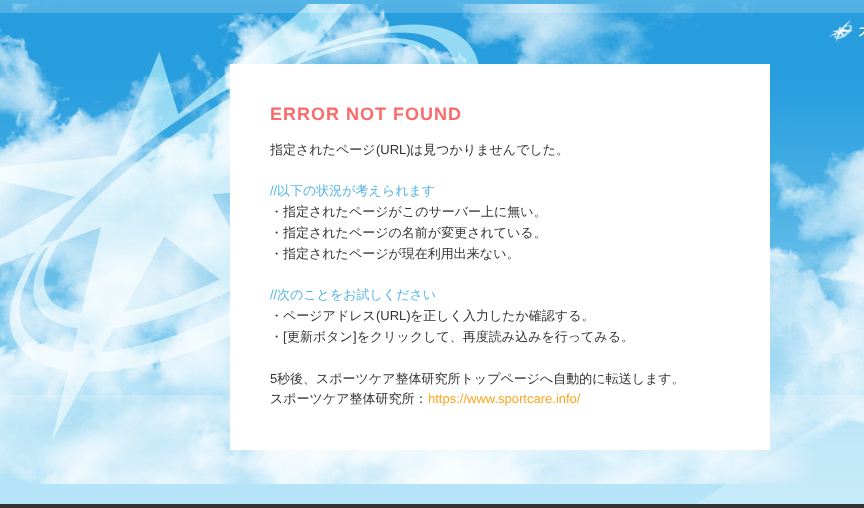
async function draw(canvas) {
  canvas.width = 864;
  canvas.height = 508;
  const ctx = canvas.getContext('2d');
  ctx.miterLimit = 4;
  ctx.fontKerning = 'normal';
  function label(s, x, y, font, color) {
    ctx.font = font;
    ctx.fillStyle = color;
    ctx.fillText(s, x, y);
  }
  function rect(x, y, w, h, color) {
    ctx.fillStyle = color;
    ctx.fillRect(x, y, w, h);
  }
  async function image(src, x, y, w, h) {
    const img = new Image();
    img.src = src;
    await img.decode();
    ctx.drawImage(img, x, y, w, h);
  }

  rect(0, 0, 864, 508, '#fff');
  await image('assets/img1.png', 0, 4, 864, 500);
  rect(0, 0, 864, 4, '#53b4e5');
  await image('assets/img2.png', 0, 4, 864, 480);
  await image('assets/img3.png', 828, 19, 36, 23);
  rect(230, 64, 540, 386, '#fff');
  ctx.letterSpacing = '1px';
  label('ERROR NOT FOUND', 270, 120, 'bold 18px Liberation Sans', '#f96a6a');
  ctx.letterSpacing = '0px';
  label('指定されたページ', 270, 154, '500 13px WenQuanYi Zen Hei', '#333');
  label('(URL)', 376, 154, '13px Liberation Sans', '#333');
  label('は見つかりませんでした。', 410, 154, '500 13px WenQuanYi Zen Hei', '#333');
  label('//', 270, 195, '13px Liberation Sans', '#52b4e5');
  label('以下の状況が考えられます', 277, 195, '500 13px WenQuanYi Zen Hei', '#52b4e5');
  label('・指定されたページがこのサーバー上に無い。', 270, 216, '500 13px WenQuanYi Zen Hei', '#333');
  label('・指定されたページの名前が変更されている。', 270, 237, '500 13px WenQuanYi Zen Hei', '#333');
  label('・指定されたページが現在利用出来ない。', 270, 258, '500 13px WenQuanYi Zen Hei', '#333');
  label('//', 270, 299, '13px Liberation Sans', '#52b4e5');
  label('次のことをお試しください', 277, 299, '500 13px WenQuanYi Zen Hei', '#52b4e5');
  label('・ページアドレス', 270, 320, '500 13px WenQuanYi Zen Hei', '#333');
  label('(URL)', 376, 320, '13px Liberation Sans', '#333');
  label('を正しく入力したか確認する。', 410, 320, '500 13px WenQuanYi Zen Hei', '#333');
  label('・ 更新ボタン をクリックして、再度読み込みを行ってみる。', 270, 341, '500 13px WenQuanYi Zen Hei', '#333');
  label('[', 283, 341, '13px Liberation Sans', '#333');
  label(']', 353, 341, '13px Liberation Sans', '#333');
  label('5', 270, 383, '13px Liberation Sans', '#333');
  label('秒後、スポーツケア整体研究所トップページへ自動的に転送します。', 277, 383, '500 13px WenQuanYi Zen Hei', '#333');
  label('スポーツケア整体研究所：', 270, 403, '500 13px WenQuanYi Zen Hei', '#333');
  label('https://www.sportcare.info/', 428, 403, '13px Liberation Sans', '#ffa51f');
  rect(0, 504, 864, 4, '#333');
}

draw(document.querySelector('canvas'));
